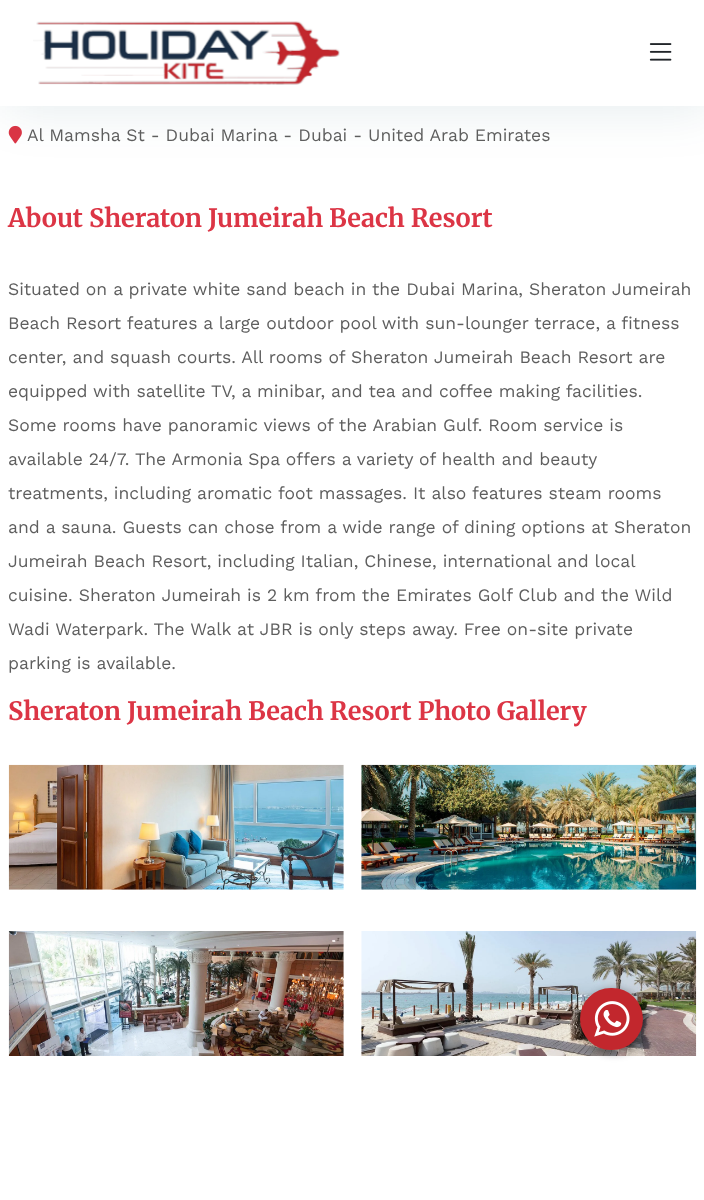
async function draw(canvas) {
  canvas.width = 704;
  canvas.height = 1200;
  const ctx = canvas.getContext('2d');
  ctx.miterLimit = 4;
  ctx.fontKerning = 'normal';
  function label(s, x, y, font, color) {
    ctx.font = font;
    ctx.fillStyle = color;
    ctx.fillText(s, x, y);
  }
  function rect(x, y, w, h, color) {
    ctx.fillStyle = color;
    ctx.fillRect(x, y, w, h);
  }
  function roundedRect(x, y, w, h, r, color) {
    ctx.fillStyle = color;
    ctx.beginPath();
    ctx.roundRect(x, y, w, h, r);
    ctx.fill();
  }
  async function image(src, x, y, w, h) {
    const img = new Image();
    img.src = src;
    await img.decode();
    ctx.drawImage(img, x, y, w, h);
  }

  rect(0, 0, 704, 1200, '#fff');
  await image('assets/img3.png', 8, 125, 14, 19);
  ctx.fillStyle = '#0048581a';
  ctx.filter = 'blur(25px)';
  ctx.beginPath();
  ctx.rect(6, 4, 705, 106);
  ctx.fill();
  ctx.filter = 'none';
  rect(0, 0, 704, 106, '#fff');
  await image('assets/img1.png', 33, 21, 307, 64);
  await image('assets/img2.png', 649, 43, 23, 18);
  label('Al Mamsha St - Dubai Marina - Dubai - United Arab Emirates', 27, 141, '17.5px Work Sans', '#5e5e5e');
  label('About Sheraton Jumeirah Beach Resort', 8, 227, 'bold 25.3px Merriweather', '#dc3545');
  label('Situated on a private white sand beach in the Dubai Marina, Sheraton Jumeirah', 8, 295, '17.5px Work Sans', '#5e5e5e');
  label('Beach Resort features a large outdoor pool with sun-lounger terrace, a fitness', 8, 329, '17.5px Work Sans', '#5e5e5e');
  label('center, and squash courts. All rooms of Sheraton Jumeirah Beach Resort are', 8, 363, '17.5px Work Sans', '#5e5e5e');
  label('equipped with satellite TV, a minibar, and tea and coffee making facilities.', 8, 397, '17.5px Work Sans', '#5e5e5e');
  label('Some rooms have panoramic views of the Arabian Gulf. Room service is', 8, 431, '17.5px Work Sans', '#5e5e5e');
  label('available 24/7. The Armonia Spa offers a variety of health and beauty', 8, 465, '17.5px Work Sans', '#5e5e5e');
  label('treatments, including aromatic foot massages. It also features steam rooms', 8, 499, '17.5px Work Sans', '#5e5e5e');
  label('and a sauna. Guests can chose from a wide range of dining options at Sheraton', 8, 533, '17.5px Work Sans', '#5e5e5e');
  label('Jumeirah Beach Resort, including Italian, Chinese, international and local', 8, 567, '17.5px Work Sans', '#5e5e5e');
  label('cuisine. Sheraton Jumeirah is 2 km from the Emirates Golf Club and the Wild', 8, 601, '17.5px Work Sans', '#5e5e5e');
  label('Wadi Waterpark. The Walk at JBR is only steps away. Free on-site private', 8, 635, '17.5px Work Sans', '#5e5e5e');
  label('parking is available.', 8, 669, '17.5px Work Sans', '#5e5e5e');
  label('Sheraton Jumeirah Beach Resort Photo Gallery', 8, 720, 'bold 25.3px Merriweather', '#dc3545');
  await image('assets/img4.png', 8, 764, 336, 126);
  await image('assets/img5.png', 361, 764, 336, 126);
  await image('assets/img6.png', 8, 931, 336, 125);
  await image('assets/img7.png', 361, 931, 336, 125);
  ctx.fillStyle = '#00000066';
  ctx.filter = 'blur(4px)';
  ctx.beginPath();
  ctx.roundRect(583, 990, 62, 63, 31);
  ctx.fill();
  ctx.filter = 'none';
  roundedRect(580, 988, 63, 62, 31, '#c2272d');
  await image('assets/img8.png', 594, 1001, 36, 36);
}

draw(document.querySelector('canvas'));
